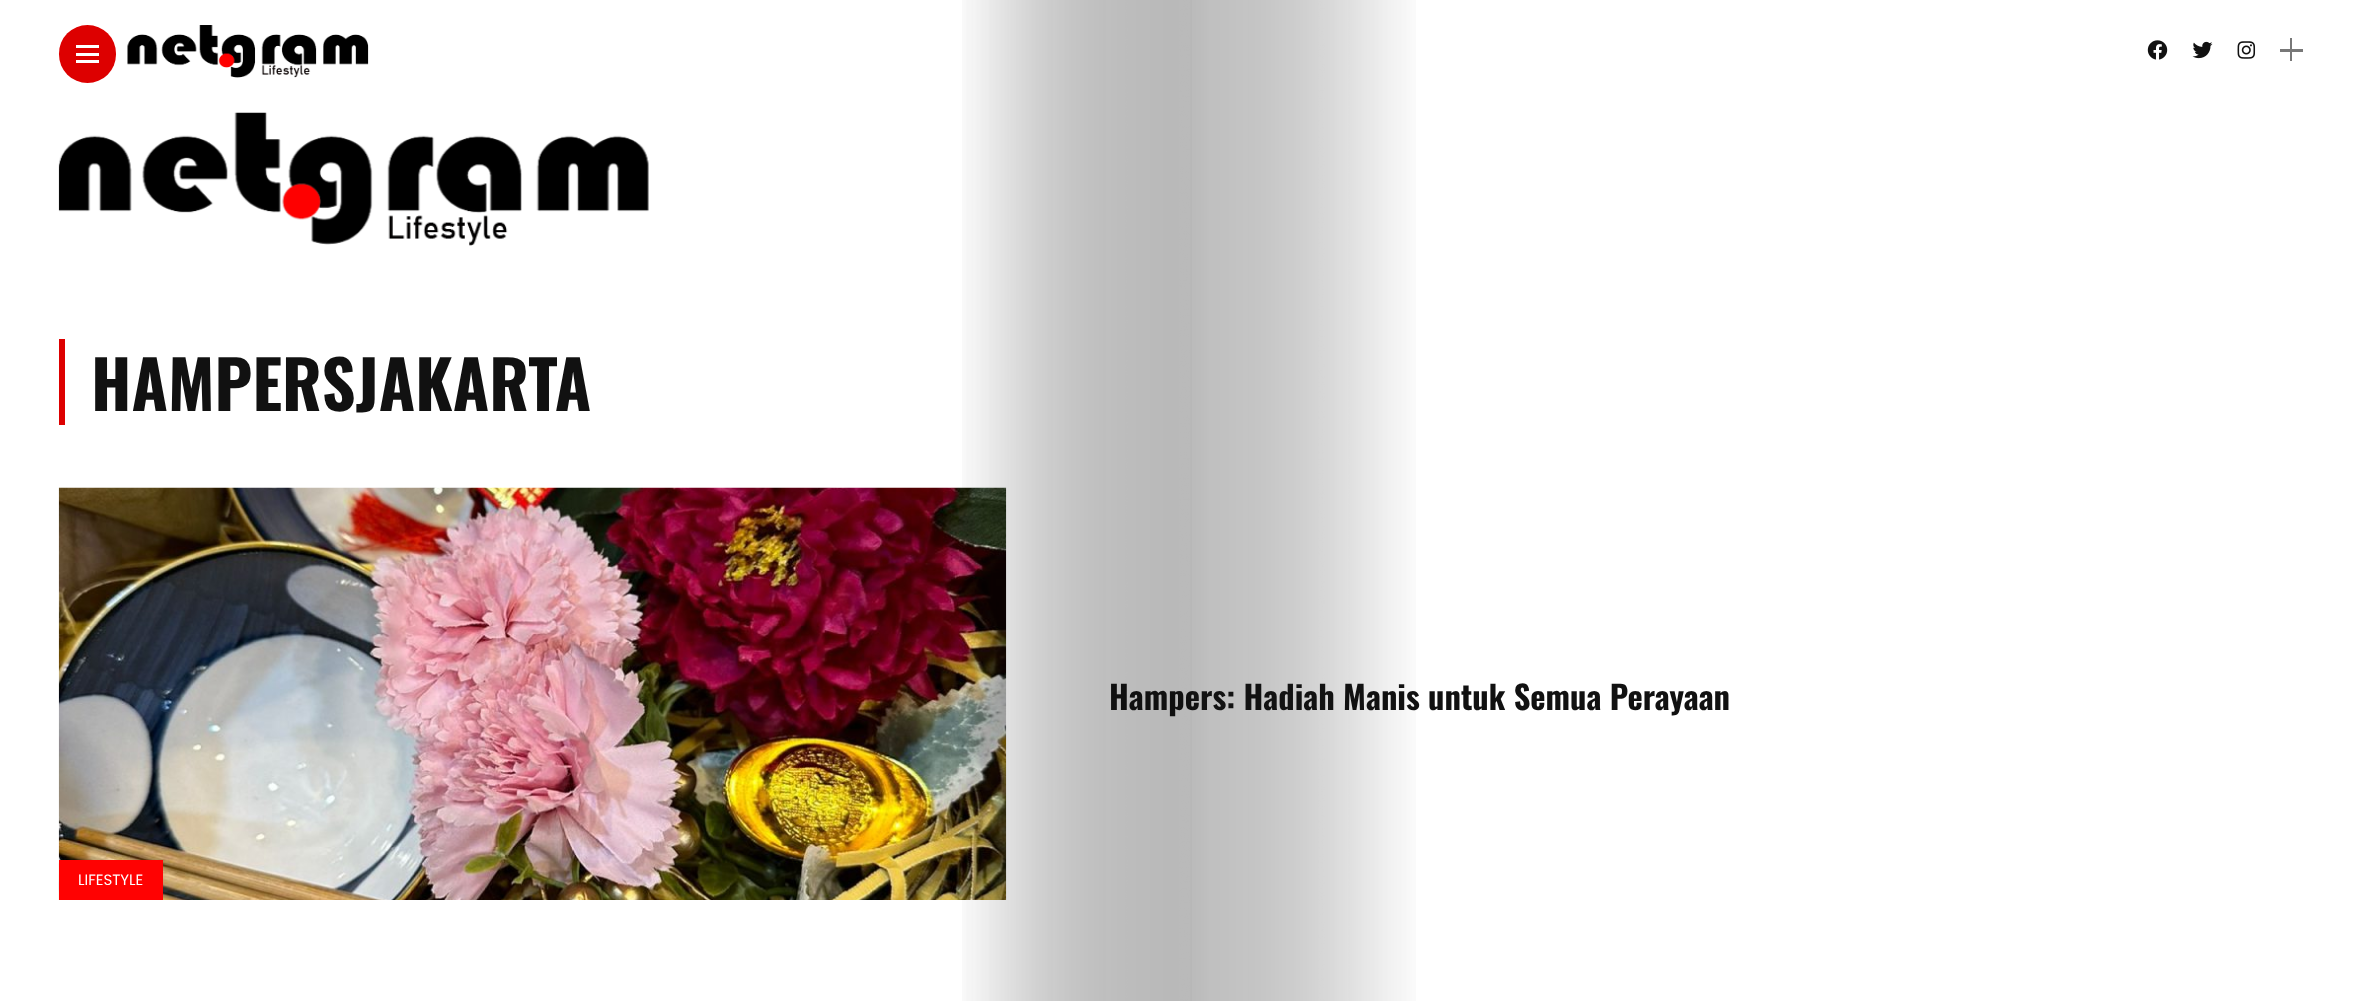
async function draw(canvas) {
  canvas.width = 2373;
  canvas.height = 1001;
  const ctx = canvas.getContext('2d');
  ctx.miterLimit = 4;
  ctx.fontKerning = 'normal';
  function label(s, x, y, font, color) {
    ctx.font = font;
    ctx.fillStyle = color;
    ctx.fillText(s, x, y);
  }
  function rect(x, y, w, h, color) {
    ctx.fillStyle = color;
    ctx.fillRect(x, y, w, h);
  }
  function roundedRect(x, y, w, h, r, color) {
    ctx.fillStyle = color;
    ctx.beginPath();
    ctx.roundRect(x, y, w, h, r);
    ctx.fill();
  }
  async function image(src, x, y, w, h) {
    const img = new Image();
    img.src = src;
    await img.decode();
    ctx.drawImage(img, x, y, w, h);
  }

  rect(0, 0, 2373, 1001, '#fff');
  roundedRect(59, 25, 57, 58, 28.5, '#d00');
  rect(76, 45, 23, 3, '#fff');
  rect(76, 53, 23, 3, '#fff');
  rect(76, 60, 23, 3, '#fff');
  await image('assets/img1.png', 127, 25, 242, 53);
  await image('assets/img2.png', 2147, 40, 21, 20);
  await image('assets/img3.png', 2192, 41, 21, 18);
  await image('assets/img4.png', 2237, 41, 19, 18);
  rect(2280, 49, 23, 3, '#787878');
  rect(2290, 38, 2, 23, '#787878');
  label('Hampers: Hadiah Manis untuk Semua Perayaan', 1109, 710, 'bold 32.5px Oswald', '#111');
  await image('assets/img7.png', 58, 487, 949, 413);
  await image('assets/img5.png', 962, 0, 454, 1001);
  await image('assets/img6.png', 58, 112, 591, 134);
  rect(59, 339, 6, 86, '#d00');
  label('HAMPERSJAKARTA', 91, 411, 'bold 66.25px Oswald', '#111');
  rect(59, 860, 104, 40, '#ff0202');
  label('LIFESTYLE', 78, 885, '15px Poppins', '#fff');
}

draw(document.querySelector('canvas'));
